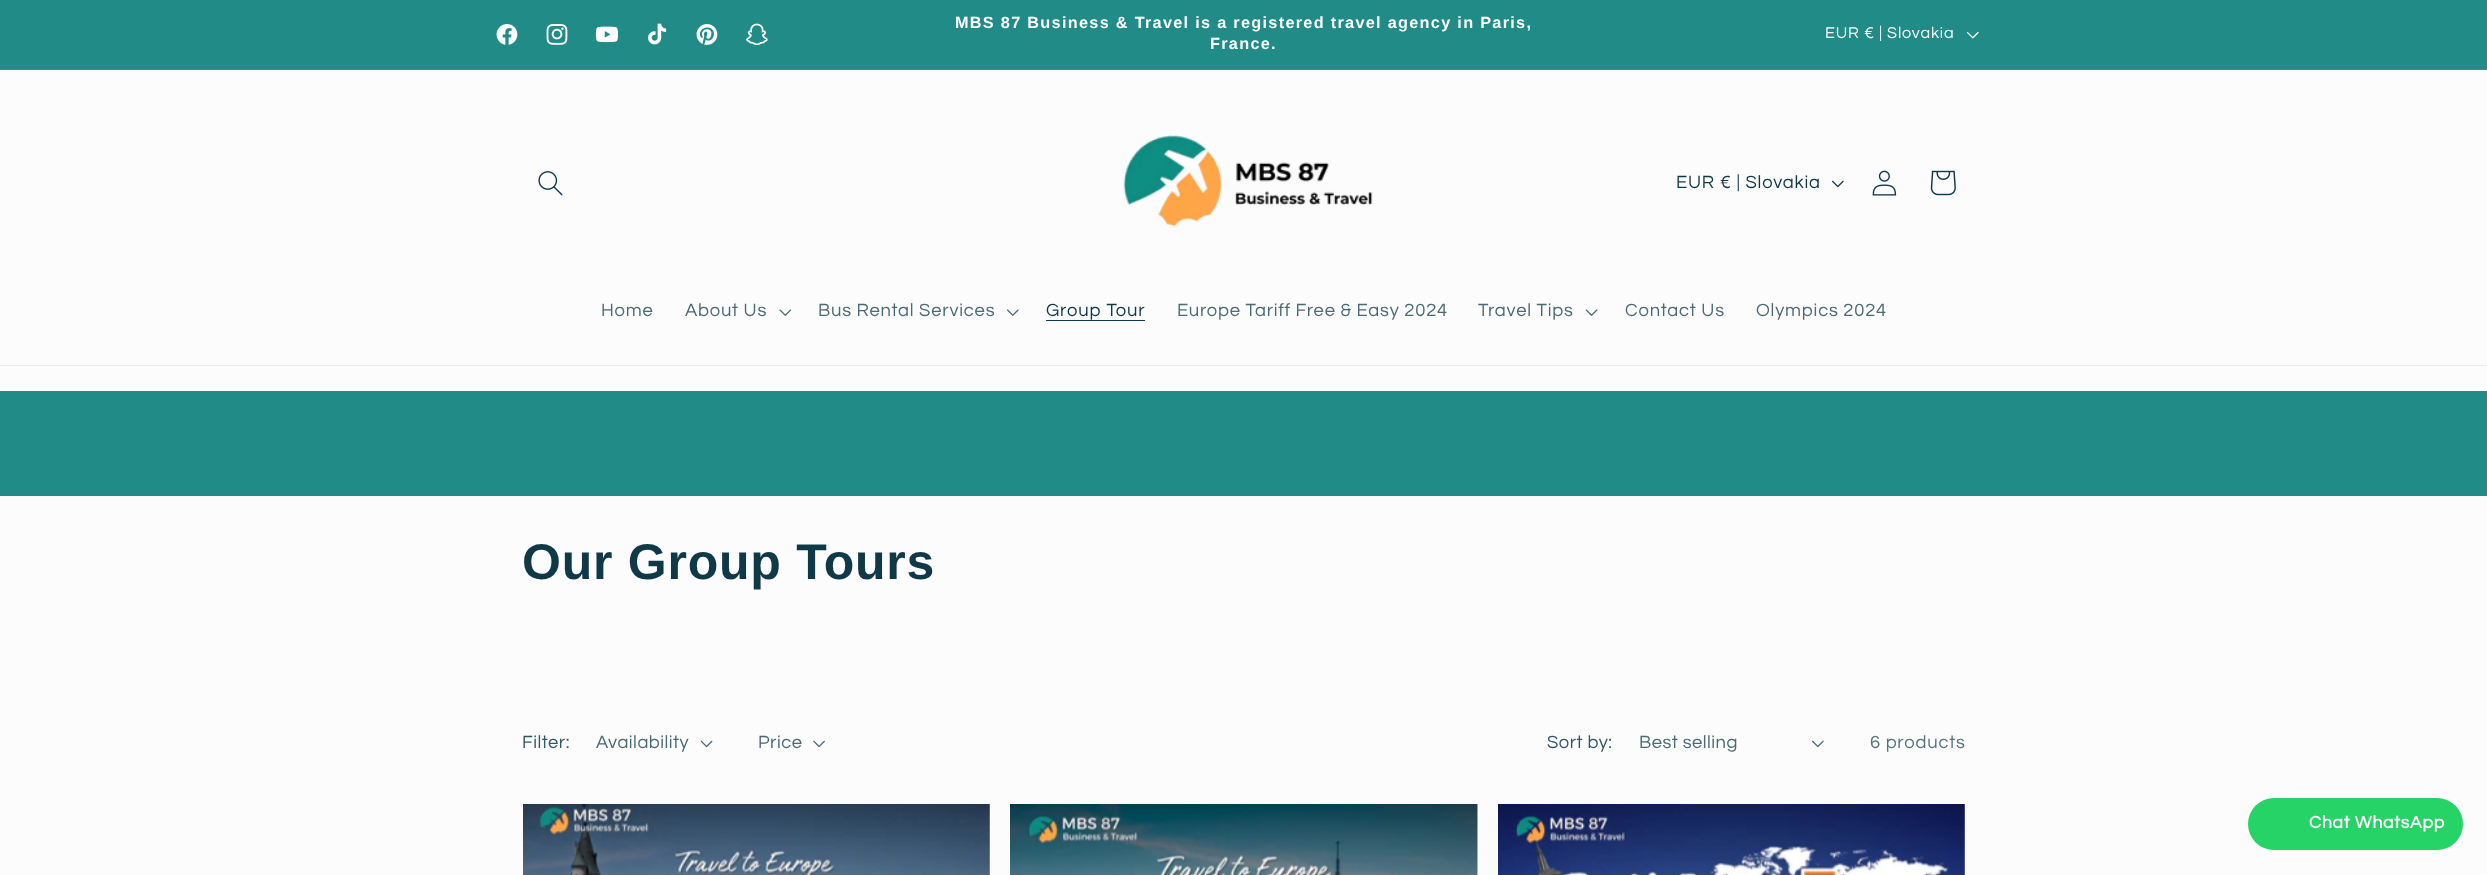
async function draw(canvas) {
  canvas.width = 2487;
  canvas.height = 875;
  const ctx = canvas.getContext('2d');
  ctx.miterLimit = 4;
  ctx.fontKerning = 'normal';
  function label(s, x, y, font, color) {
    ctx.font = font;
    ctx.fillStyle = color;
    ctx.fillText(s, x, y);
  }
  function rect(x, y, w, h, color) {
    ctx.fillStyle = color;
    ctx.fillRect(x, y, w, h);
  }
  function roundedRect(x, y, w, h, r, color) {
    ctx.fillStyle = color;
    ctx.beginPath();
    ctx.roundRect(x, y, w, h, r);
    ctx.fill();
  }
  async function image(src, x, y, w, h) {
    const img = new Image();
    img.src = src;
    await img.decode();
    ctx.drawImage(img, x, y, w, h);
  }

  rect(0, 0, 2487, 875, '#fcfcfc');
  rect(0, 0, 2487, 69, '#218c87');
  rect(0, 69, 2487, 1, '#339591');
  await image('assets/img1.png', 496, 24, 22, 21);
  await image('assets/img2.png', 546, 24, 22, 21);
  await image('assets/img3.png', 595, 26, 23, 17);
  await image('assets/img4.png', 648, 23, 19, 22);
  await image('assets/img5.png', 696, 24, 22, 21);
  await image('assets/img6.png', 746, 23, 22, 23);
  ctx.letterSpacing = '1.3px';
  label('MBS 87 Business & Travel is a registered travel agency in Paris,', 955, 28, 'bold 16.25px Arimo', '#fff');
  label('France.', 1210, 49, 'bold 16.25px Arimo', '#fff');
  ctx.letterSpacing = '0.8px';
  label('EUR € | Slovakia', 1825, 38, '16.25px Questrial', '#fff');
  await image('assets/img7.png', 1966, 32, 13, 7);
  rect(0, 365, 2487, 1, '#e9ecee');
  await image('assets/img8.png', 538, 171, 25, 25);
  await image('assets/img9.png', 1123, 135, 250, 92);
  label('EUR € | Slovakia', 1676, 188, '18.4px Questrial', '#103948');
  await image('assets/img10.png', 1831, 180, 13, 8);
  await image('assets/img11.png', 1872, 170, 25, 26);
  await image('assets/img12.png', 1930, 170, 26, 26);
  label('Home', 601, 316, '18.4px Questrial', '#4b6a75');
  label('About Us', 685, 316, '18.4px Questrial', '#4b6a75');
  await image('assets/img13.png', 779, 309, 12, 7);
  label('Bus Rental Services', 818, 316, '18.4px Questrial', '#4b6a75');
  await image('assets/img14.png', 1007, 309, 12, 7);
  label('Group Tour', 1046, 316, '18.4px Questrial', '#103948');
  rect(1046, 320, 99, 1, '#103948');
  label('Europe Tariff Free & Easy 2024', 1177, 316, '18.4px Questrial', '#4b6a75');
  label('Travel Tips', 1478, 316, '18.4px Questrial', '#4b6a75');
  await image('assets/img15.png', 1585, 309, 13, 7);
  label('Contact Us', 1625, 316, '18.4px Questrial', '#4b6a75');
  label('Olympics 2024', 1756, 316, '18.4px Questrial', '#4b6a75');
  rect(0, 391, 2487, 105, '#218c87');
  ctx.letterSpacing = '0.75px';
  label('Our Group Tours', 522, 579, 'bold 50px Arimo', '#103948');
  ctx.letterSpacing = '0.5px';
  label('Filter:', 522, 748, '18.4px Questrial', '#335663');
  label('Availability', 596, 748, '18.4px Questrial', '#4b6a75');
  await image('assets/img16.png', 700, 740, 13, 8);
  label('Price', 758, 748, '18.4px Questrial', '#4b6a75');
  await image('assets/img17.png', 813, 740, 12, 8);
  label('Sort by:', 1547, 748, '18.4px Questrial', '#335663');
  label('Best selling', 1639, 748, '18.4px Questrial', '#4b6a75');
  await image('assets/img18.png', 1812, 740, 12, 8);
  ctx.letterSpacing = '0.8px';
  label('6 products', 1870, 748, '18.4px Questrial', '#57747e');
  await image('assets/img19.png', 523, 804, 467, 71);
  await image('assets/img20.png', 1010, 804, 468, 71);
  await image('assets/img21.png', 1498, 804, 467, 71);
  roundedRect(2248, 798, 215, 52, 26, '#25d366');
  label('Chat WhatsApp', 2309, 828, 'bold 17.5px Questrial', '#fff');
}

draw(document.querySelector('canvas'));
